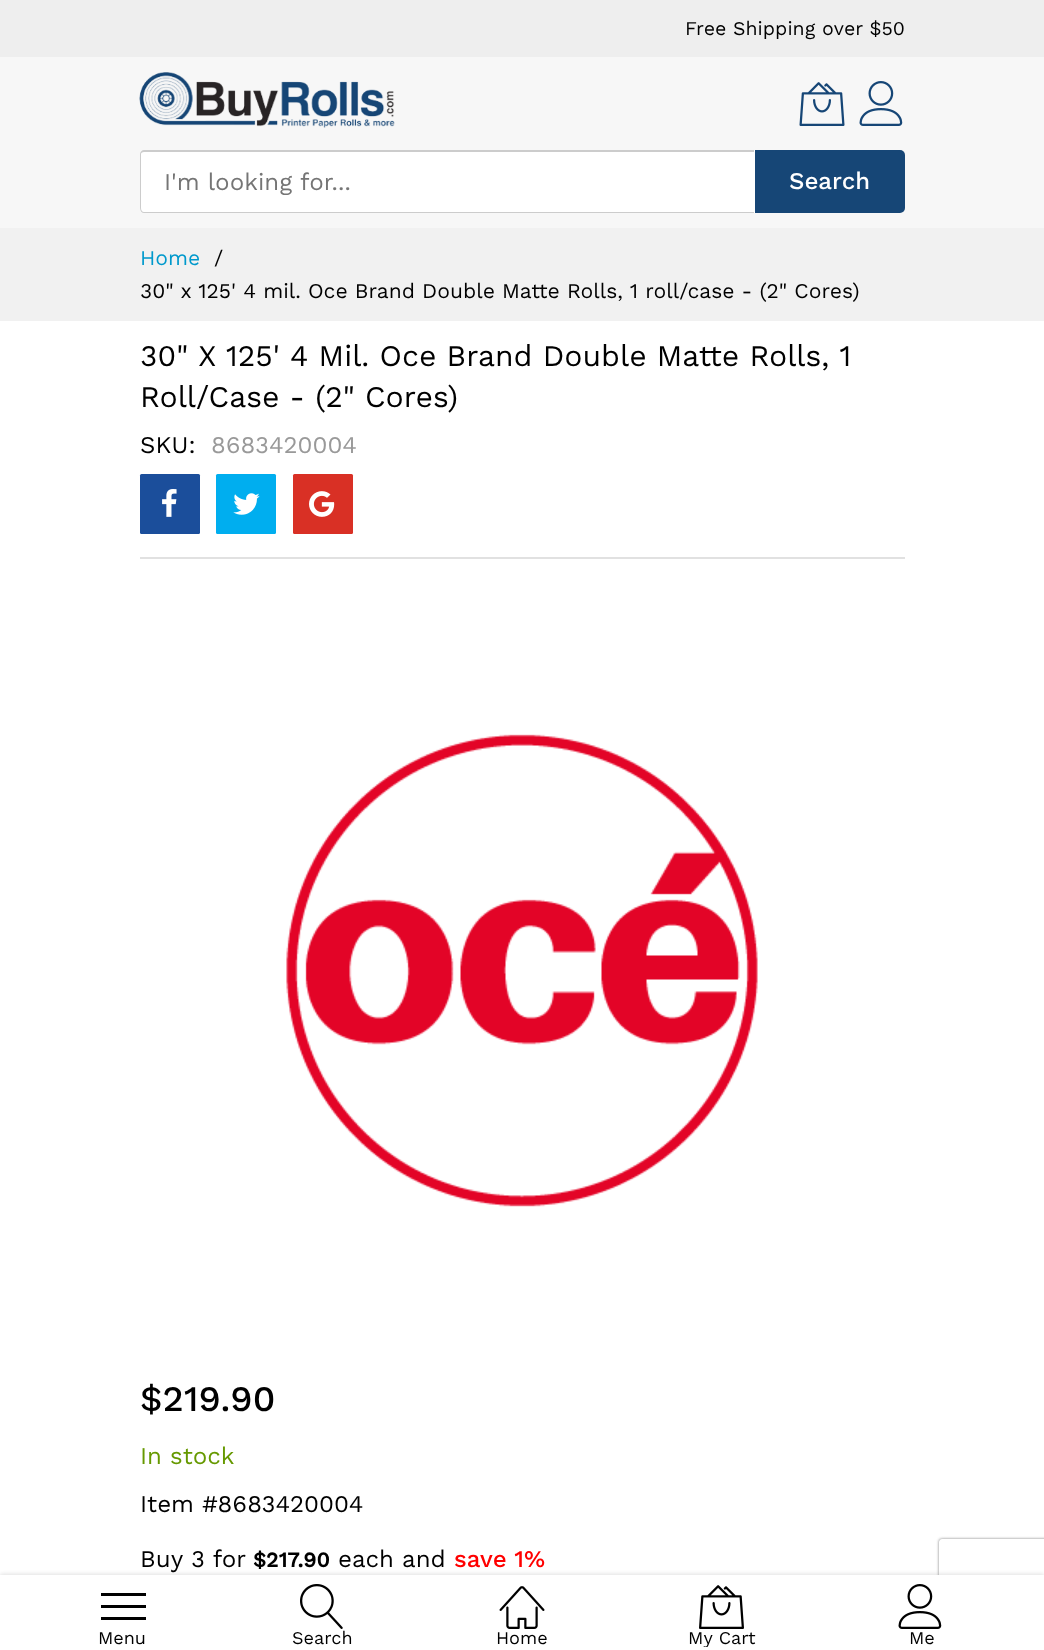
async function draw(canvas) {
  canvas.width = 1044;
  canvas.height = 1650;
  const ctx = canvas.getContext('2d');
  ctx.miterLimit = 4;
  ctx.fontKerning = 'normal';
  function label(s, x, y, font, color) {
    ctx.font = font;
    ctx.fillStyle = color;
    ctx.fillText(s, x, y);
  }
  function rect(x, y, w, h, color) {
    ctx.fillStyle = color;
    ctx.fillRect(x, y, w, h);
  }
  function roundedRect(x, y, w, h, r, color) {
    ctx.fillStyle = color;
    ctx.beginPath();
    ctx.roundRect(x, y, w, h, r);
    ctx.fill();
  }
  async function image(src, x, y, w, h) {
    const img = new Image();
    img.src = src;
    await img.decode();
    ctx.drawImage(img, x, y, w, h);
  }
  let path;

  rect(0, 0, 1044, 1650, '#fff');
  rect(0, 0, 1044, 57, '#eee');
  label('Free Shipping over $50', 685, 35, '19.5px Work Sans', '#000');
  rect(0, 57, 1044, 171, '#f7f7f7');
  await image('assets/img1.png', 139, 72, 256, 56);
  await image('assets/img2.png', 799, 82, 46, 44);
  await image('assets/img3.png', 859, 81, 44, 45);
  ctx.fillStyle = '#fff';
  ctx.beginPath();
  ctx.roundRect(140, 150, 615, 63, [5, 0, 0, 5]);
  ctx.fill();
  ctx.fillStyle = '#ccc';
  path = new Path2D('M144 150H754V213H144C142 213 140 211 140 208V154C140 152 142 150 144 150ZM144 152H754V212H144C142 212 141 210 141 208V154C141 153 142 152 144 152Z');
  ctx.fill(path, 'evenodd');
  ctx.save();
  ctx.beginPath();
  ctx.rect(164, 167, 568, 28);
  ctx.clip();
  label('I\'m looking for...', 164, 190, '24px Work Sans', '#757575');
  ctx.restore();
  ctx.fillStyle = '#164676';
  ctx.beginPath();
  ctx.roundRect(755, 150, 150, 63, [0, 5, 5, 0]);
  ctx.fill();
  label('Search', 789, 189, '500 24px Work Sans', '#fff');
  ctx.fillStyle = '#0000001f';
  ctx.filter = 'blur(2px)';
  ctx.beginPath();
  ctx.rect(0, 1574, 1044, 75);
  ctx.fill();
  ctx.filter = 'none';
  ctx.save();
  path = new Path2D('M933 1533H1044V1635H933ZM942 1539H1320C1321.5 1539 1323 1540.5 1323 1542V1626C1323 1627.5 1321.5 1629 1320 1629H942C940.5 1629 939 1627.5 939 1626V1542C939 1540.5 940.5 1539 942 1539Z');
  ctx.clip(path, 'evenodd');
  ctx.fillStyle = '#808080';
  ctx.filter = 'blur(1.5px)';
  ctx.beginPath();
  ctx.roundRect(939, 1539, 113, 90, 3);
  ctx.fill();
  ctx.filter = 'none';
  ctx.restore();
  rect(0, 1575, 1044, 75, '#fff');
  rect(101, 1605, 45, 3, '#000');
  rect(101, 1593, 45, 3, '#000');
  rect(101, 1617, 45, 3, '#000');
  label('Menu', 98, 1644, '18px Work Sans', '#000');
  await image('assets/img4.png', 300, 1584, 43, 45);
  label('Search', 292, 1644, '18px Work Sans', '#000');
  await image('assets/img5.png', 499, 1586, 46, 43);
  label('Home', 496, 1644, '18px Work Sans', '#000');
  await image('assets/img6.png', 699, 1585, 45, 44);
  ctx.save();
  ctx.beginPath();
  ctx.rect(623, 1629, 199, 18);
  ctx.clip();
  label('My Cart', 688, 1644, '18px Work Sans', '#000');
  ctx.restore();
  await image('assets/img7.png', 898, 1584, 44, 45);
  label('Me', 909, 1644, '18px Work Sans', '#000');
  rect(0, 228, 1044, 93, '#f1f1f1');
  label('Home', 140, 265, '21px Work Sans', '#09c');
  label('/', 214, 265, '21px Work Sans', '#000');
  label('30" x 125\' 4 mil. Oce Brand Double Matte Rolls, 1 roll/case - (2" Cores)', 140, 298, '21px Work Sans', '#000');
  rect(140, 557, 765, 2, '#e1e1e1');
  label('30" X 125\' 4 Mil. Oce Brand Double Matte Rolls, 1', 140, 366, '30px Work Sans', '#000');
  label('Roll/Case - (2" Cores)', 140, 407, '30px Work Sans', '#000');
  label('SKU:', 140, 453, '24px Work Sans', '#000');
  label('8683420004', 211, 453, '24px Work Sans', '#999');
  roundedRect(140, 474, 60, 60, 1.5, '#1b4e9b');
  await image('assets/img8.png', 162, 489, 15, 28);
  roundedRect(216, 474, 60, 60, 1.5, '#00aeef');
  await image('assets/img9.png', 233, 493, 27, 22);
  roundedRect(293, 474, 60, 60, 1.5, '#d93025');
  await image('assets/img10.png', 309, 491, 26, 26);
  await image('assets/img11.png', 286, 734, 472, 473);
  label('$219.90', 140, 1411, '500 36px Work Sans', '#000');
  label('In stock', 140, 1464, '24px Work Sans', '#690');
  label('Item #8683420004', 140, 1512, '24px Work Sans', '#000');
  label('Buy 3 for', 140, 1567, '24px Work Sans', '#000');
  label('$217.90', 253, 1567, 'bold 21px Work Sans', '#000');
  label('each and', 338, 1567, '24px Work Sans', '#000');
  label('save 1%', 454, 1567, '500 24px Work Sans', '#f00');
}

draw(document.querySelector('canvas'));
